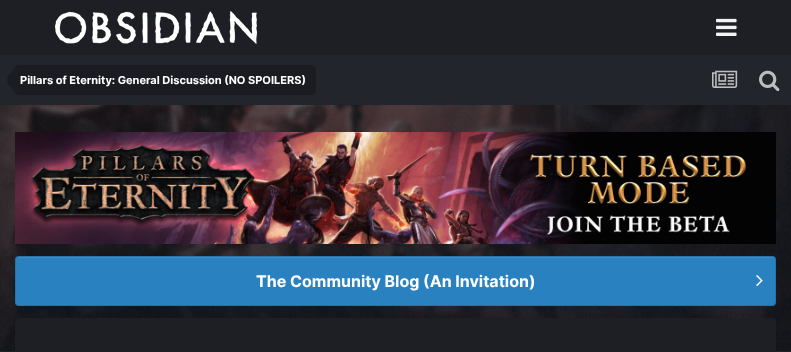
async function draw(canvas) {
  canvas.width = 791;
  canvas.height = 352;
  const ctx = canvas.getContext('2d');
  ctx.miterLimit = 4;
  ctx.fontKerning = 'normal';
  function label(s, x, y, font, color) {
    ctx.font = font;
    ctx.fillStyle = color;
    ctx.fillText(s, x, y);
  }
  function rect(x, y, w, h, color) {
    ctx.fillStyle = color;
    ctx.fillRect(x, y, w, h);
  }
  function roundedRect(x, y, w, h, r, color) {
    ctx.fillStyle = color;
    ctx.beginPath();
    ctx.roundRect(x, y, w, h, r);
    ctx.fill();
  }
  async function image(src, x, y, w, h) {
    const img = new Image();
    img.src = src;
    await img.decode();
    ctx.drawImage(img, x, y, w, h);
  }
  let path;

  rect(0, 0, 791, 352, '#fff');
  rect(0, 0, 791, 55, '#1d1f25');
  await image('assets/img1.png', 55, 11, 202, 33);
  await image('assets/img2.png', 716, 18, 21, 18);
  rect(0, 55, 791, 50, '#23252c');
  ctx.fillStyle = '#1a1c21';
  ctx.beginPath();
  ctx.roundRect(20, 65, 296, 30, [0, 5, 5, 0]);
  ctx.fill();
  path = new Path2D('M20 80V95C15.5 95 13.5 90.5 11 87C9.5 85 7 83 7 80ZM20 80H7C7 77 9.5 75 11 73C13.5 69.5 15.5 65 20 65Z');
  ctx.fill(path);
  label('Pillars of Eternity: General Discussion (NO SPOILERS)', 20, 84, 'bold 11px Inter', '#fff');
  await image('assets/img3.png', 712, 70, 26, 18);
  await image('assets/img4.png', 759, 70, 21, 22);
  await image('assets/img5.png', 0, 105, 791, 247);
  await image('assets/img6.png', 15, 132, 761, 112);
  roundedRect(15, 256, 761, 50, 4, '#2981bf');
  ctx.fillStyle = '#3e8ec5';
  path = new Path2D('M19 258H772C774 258 775 259 775 261C775 259 774 257 772 257H19C17 257 16 259 16 261C16 259 17 258 19 258Z');
  ctx.fill(path);
  ctx.beginPath();
  ctx.roundRect(15.5, 256.5, 760, 49, 3.5);
  ctx.strokeStyle = '#0000001a';
  ctx.stroke();
  label('The Community Blog (An Invitation)', 256, 287, 'bold 16px Inter', '#fff');
  await image('assets/img7.png', 756, 275, 7, 12);
  roundedRect(15, 318, 761, 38, 4, '#1d1f25');
}

draw(document.querySelector('canvas'));
